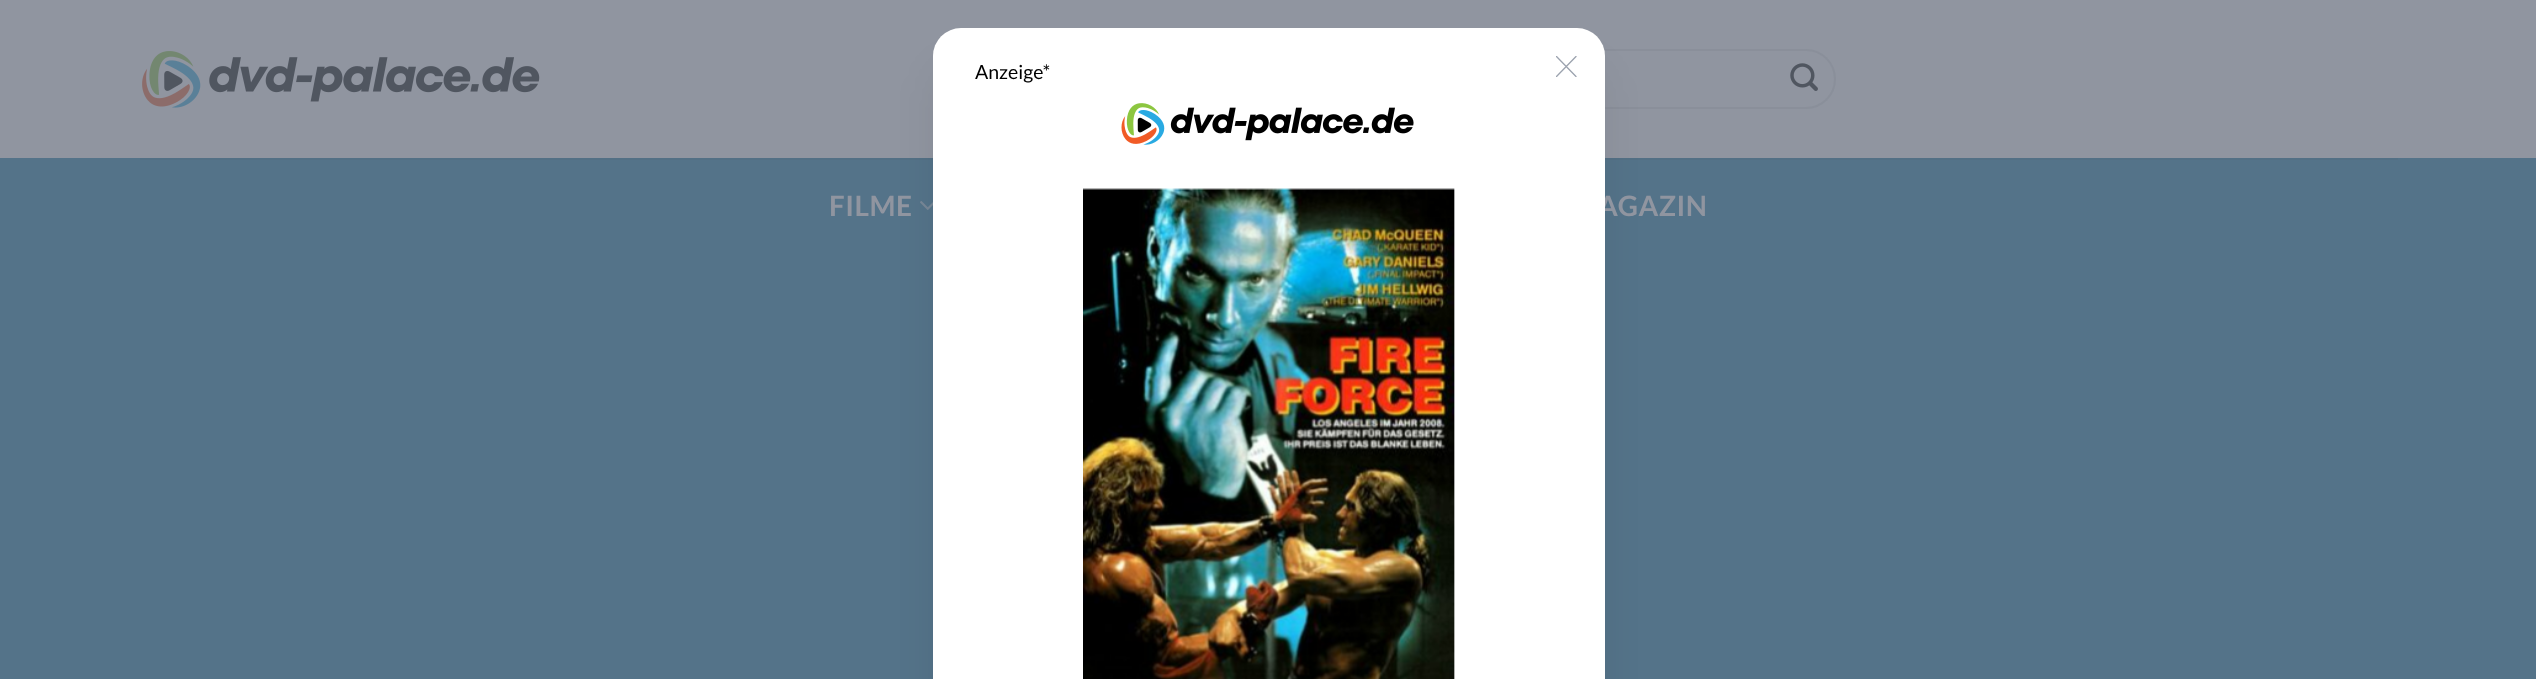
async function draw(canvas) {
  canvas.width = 2536;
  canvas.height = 679;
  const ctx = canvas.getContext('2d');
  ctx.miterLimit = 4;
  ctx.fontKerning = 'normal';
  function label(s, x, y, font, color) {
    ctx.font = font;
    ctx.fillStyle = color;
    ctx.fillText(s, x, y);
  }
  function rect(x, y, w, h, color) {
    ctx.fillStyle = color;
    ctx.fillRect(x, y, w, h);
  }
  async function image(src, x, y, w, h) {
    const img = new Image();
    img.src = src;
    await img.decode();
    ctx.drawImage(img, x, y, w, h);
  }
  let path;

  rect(0, 0, 2536, 679, '#9095a0');
  rect(0, 158, 2536, 521, '#547389');
  ctx.beginPath();
  ctx.roundRect(1100, 50, 735, 58, 29);
  ctx.strokeStyle = '#50566017';
  ctx.lineWidth = 2;
  ctx.stroke();
  rect(140, 158, 2258, 2, '#537085');
  await image('assets/img5.png', 920, 201, 13, 9);
  ctx.fillStyle = '#0000001a';
  ctx.filter = 'blur(22px)';
  ctx.beginPath();
  ctx.roundRect(942, 72, 654, 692, 19);
  ctx.fill();
  ctx.filter = 'none';
  ctx.letterSpacing = '0.5px';
  label('AGAZIN', 1598, 216, 'bold 28px Lato', '#9095a0');
  ctx.fillStyle = '#fff';
  ctx.beginPath();
  ctx.roundRect(933, 28, 672, 651, [28, 28, 0, 0]);
  ctx.fill();
  ctx.letterSpacing = '0px';
  label('Anzeige*', 975, 79, '19.5px Lato', '#000');
  ctx.save();
  ctx.beginPath();
  ctx.rect(1556, 56, 21, 21);
  ctx.clip();
  path = new Path2D('M1556.5 76.5L1576 56.5M1556.5 56.5L1576 76.5');
  ctx.strokeStyle = '#9ca3af';
  ctx.lineWidth = 1.3;
  ctx.lineCap = 'round';
  ctx.lineJoin = 'round';
  ctx.stroke(path);
  ctx.restore();
  await image('assets/img1.png', 1121, 103, 293, 42);
  await image('assets/img2.png', 1083, 188, 372, 491);
  await image('assets/img3.png', 142, 51, 398, 57);
  await image('assets/img4.png', 1790, 63, 28, 28);
  ctx.letterSpacing = '0.5px';
  label('FILME', 829, 216, 'bold 28px Lato', '#9095a0');
}

draw(document.querySelector('canvas'));
